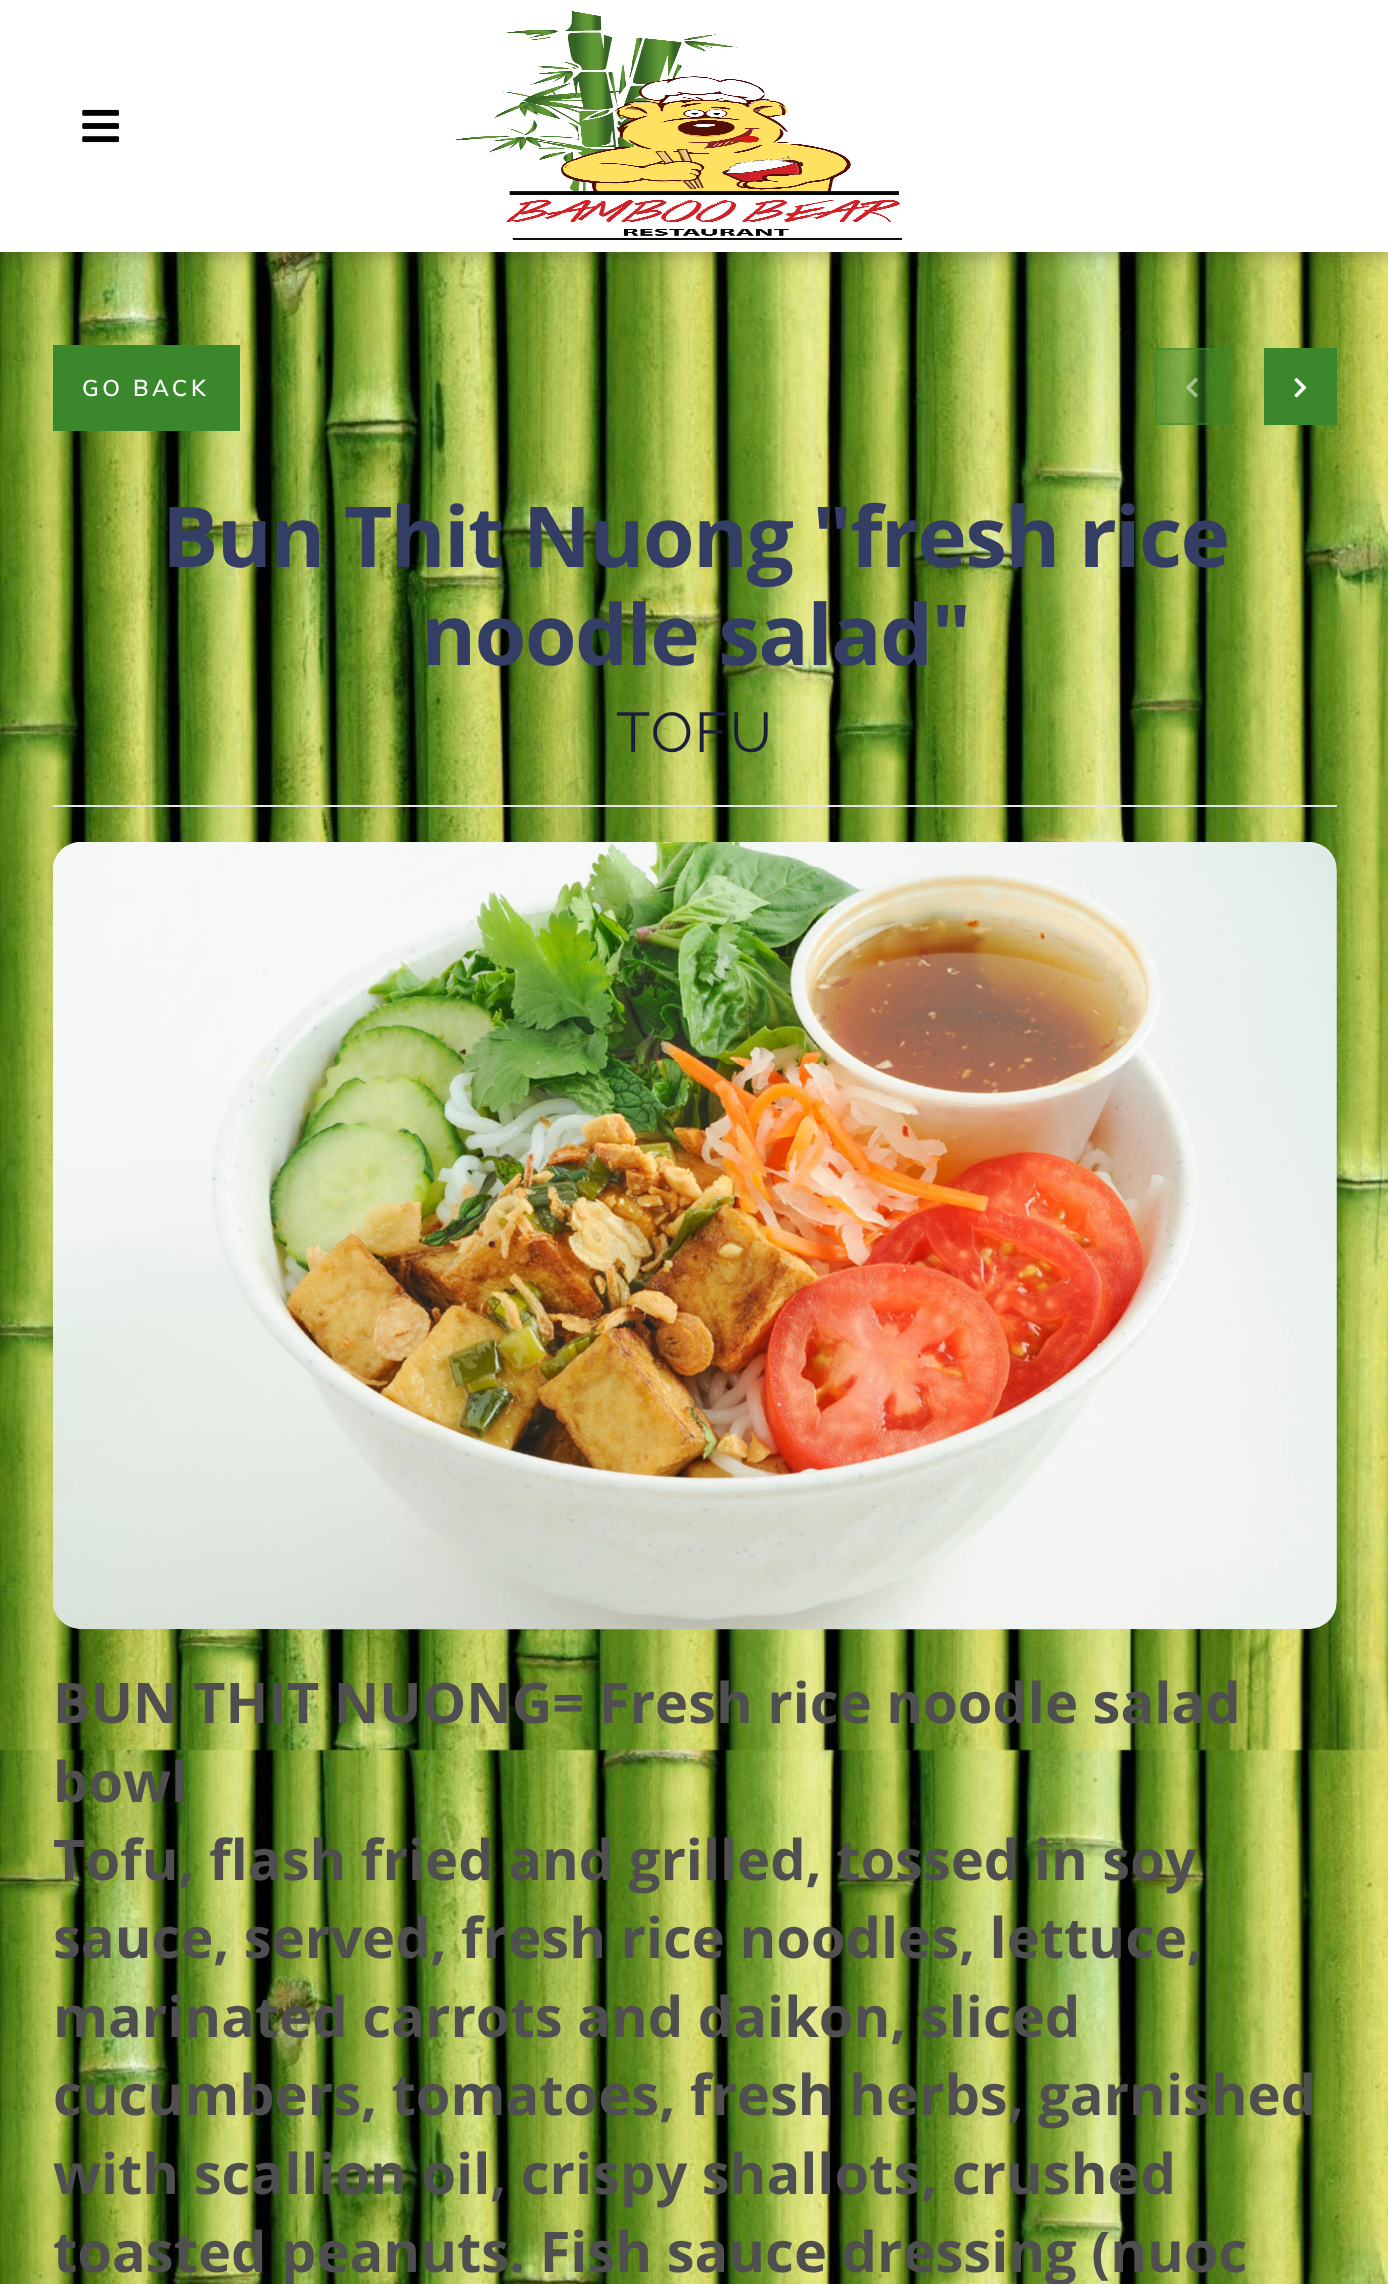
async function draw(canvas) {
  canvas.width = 1388;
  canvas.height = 2284;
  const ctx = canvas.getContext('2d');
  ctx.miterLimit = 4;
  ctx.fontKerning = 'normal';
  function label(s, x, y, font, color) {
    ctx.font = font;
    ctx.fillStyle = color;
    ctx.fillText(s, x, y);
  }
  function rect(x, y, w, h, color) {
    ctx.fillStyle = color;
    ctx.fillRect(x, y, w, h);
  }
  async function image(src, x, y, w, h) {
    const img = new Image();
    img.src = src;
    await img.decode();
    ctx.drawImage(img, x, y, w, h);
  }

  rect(0, 0, 1388, 2284, '#fff');
  await image('assets/img1.png', 0, 252, 1388, 2032);
  ctx.fillStyle = '#29292940';
  ctx.filter = 'blur(8px)';
  ctx.beginPath();
  ctx.rect(-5, -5, 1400, 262);
  ctx.fill();
  ctx.filter = 'none';
  rect(0, 0, 1388, 252, '#fff');
  await image('assets/img2.png', 82, 109, 37, 34);
  await image('assets/img3.png', 455, 11, 448, 229);
  rect(53, 345, 187, 86, '#3b882c');
  ctx.letterSpacing = '3.5px';
  label('GO BACK', 82, 396, '600 22.75px Muli', '#fafafa');
  rect(1155, 348, 74, 77, '#3b882c80');
  ctx.strokeStyle = '#3b882c80';
  ctx.lineWidth = 2;
  ctx.strokeRect(1156, 349, 72, 75);
  await image('assets/img4.png', 1186, 378, 12, 20);
  rect(1264, 348, 73, 77, '#3b882c');
  await image('assets/img5.png', 1294, 377, 13, 21);
  ctx.letterSpacing = '-1.75px';
  label('Bun Thit Nuong "fresh rice', 162, 567, 'bold 84px Open Sans', '#343d63');
  label('noodle salad"', 421, 665, 'bold 84px Open Sans', '#343d63');
  ctx.letterSpacing = '2px';
  label('TOFU', 616, 752, '56px Raleway', '#1b1f3b');
  rect(53, 805, 1284, 2, '#e5e5e5');
  await image('assets/img6.png', 53, 842, 1284, 788);
  ctx.letterSpacing = '0px';
  label('BUN THIT NUONG= Fresh rice noodle salad', 53, 1723, 'bold 56px Open Sans', '#4f4f4f');
  label('bowl', 53, 1802, 'bold 56px Open Sans', '#4f4f4f');
  label('Tofu, flash fried and grilled, tossed in soy', 53, 1880, 'bold 56px Open Sans', '#4f4f4f');
  label('sauce, served, fresh rice noodles, lettuce,', 53, 1958, 'bold 56px Open Sans', '#4f4f4f');
  label('marinated carrots and daikon, sliced', 53, 2037, 'bold 56px Open Sans', '#4f4f4f');
  label('cucumbers, tomatoes, fresh herbs, garnished', 53, 2115, 'bold 56px Open Sans', '#4f4f4f');
  label('with scallion oil, crispy shallots, crushed', 53, 2194, 'bold 56px Open Sans', '#4f4f4f');
  label('toasted peanuts. Fish sauce dressing (nuoc', 53, 2272, 'bold 56px Open Sans', '#4f4f4f');
}

draw(document.querySelector('canvas'));
